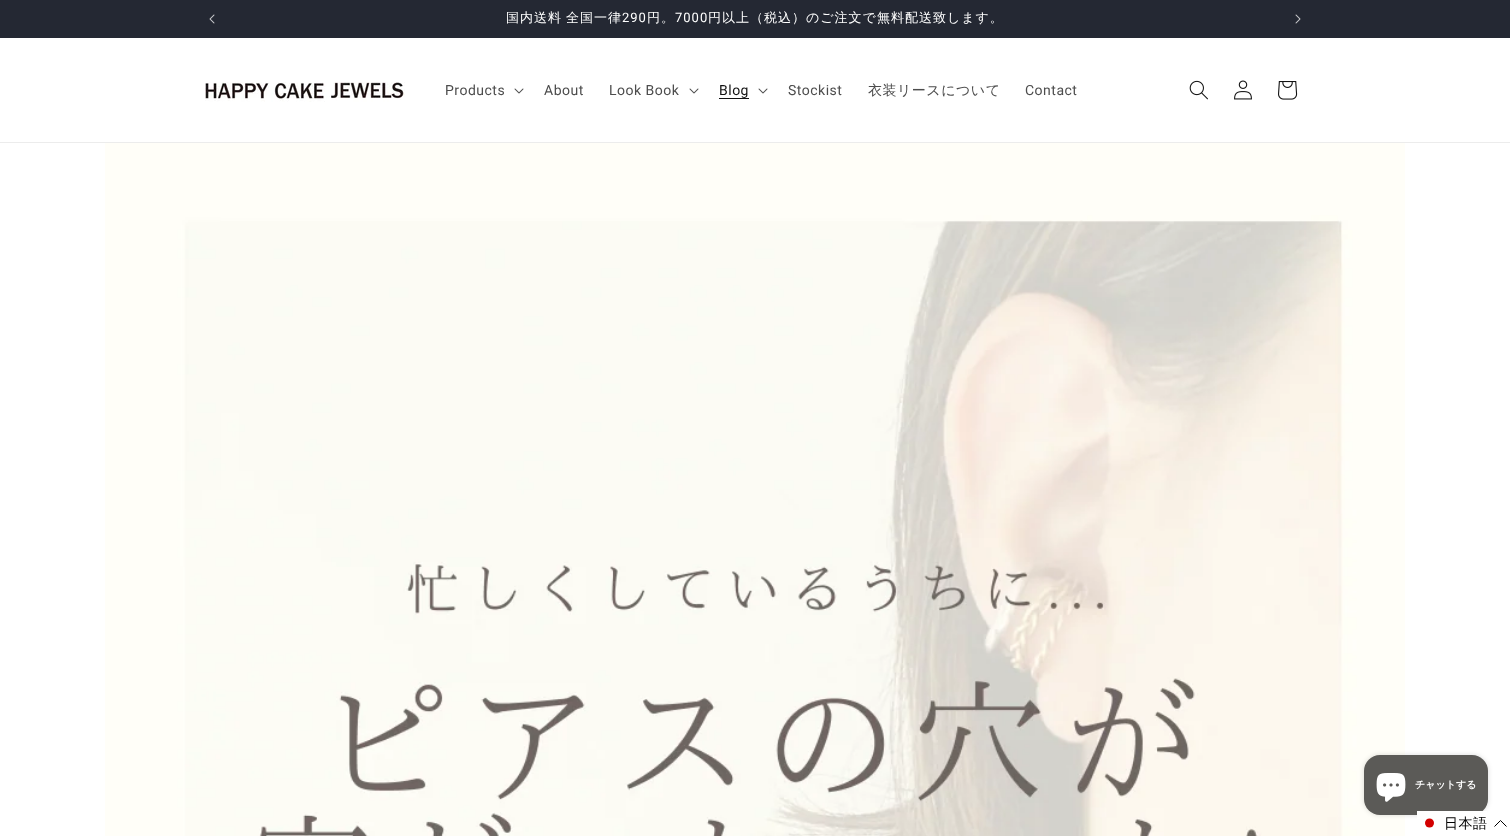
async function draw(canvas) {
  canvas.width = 1510;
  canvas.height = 836;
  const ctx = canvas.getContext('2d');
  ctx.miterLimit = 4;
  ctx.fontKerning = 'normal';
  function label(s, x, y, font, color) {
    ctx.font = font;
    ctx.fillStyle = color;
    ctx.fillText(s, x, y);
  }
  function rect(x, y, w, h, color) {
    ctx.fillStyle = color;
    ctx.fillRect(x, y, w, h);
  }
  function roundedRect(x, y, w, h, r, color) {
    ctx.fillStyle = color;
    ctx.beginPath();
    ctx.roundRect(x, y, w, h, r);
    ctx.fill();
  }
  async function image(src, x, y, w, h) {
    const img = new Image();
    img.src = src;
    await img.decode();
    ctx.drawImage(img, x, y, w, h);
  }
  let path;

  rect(0, 0, 1510, 836, '#fff');
  rect(0, 0, 1510, 38, '#242833');
  await image('assets/img1.png', 209, 14, 6, 10);
  ctx.letterSpacing = '1px';
  ctx.wordSpacing = '-1px';
  label('国内送料 全国一律', 506, 22, '500 13px WenQuanYi Zen Hei', '#fff');
  ctx.wordSpacing = '0px';
  label('290', 622, 22, '13px Roboto', '#fff');
  label('円。', 647, 22, '500 13px WenQuanYi Zen Hei', '#fff');
  label('7000', 675, 22, '13px Roboto', '#fff');
  label('円以上（税込）のご注文で無料配送致します。', 708, 22, '500 13px WenQuanYi Zen Hei', '#fff');
  await image('assets/img2.png', 1295, 14, 6, 10);
  rect(0, 142, 1510, 1, '#ececec');
  await image('assets/img3.png', 205, 82, 200, 20);
  ctx.letterSpacing = '0.5px';
  label('Products', 445, 95, '14px Roboto', '#4d4d4d');
  await image('assets/img4.png', 514, 88, 10, 6);
  label('About', 544, 95, '14px Roboto', '#4d4d4d');
  label('Look Book', 609, 95, '14px Roboto', '#4d4d4d');
  await image('assets/img4.png', 689, 88, 10, 6);
  label('Blog', 719, 95, '14px Roboto', '#121212');
  rect(719, 98, 30, 1, '#121212');
  await image('assets/img4.png', 758, 88, 10, 6);
  label('Stockist', 788, 95, '14px Roboto', '#4d4d4d');
  label('衣装リースについて', 868, 95, '500 14px WenQuanYi Zen Hei', '#4d4d4d');
  label('Contact', 1025, 95, '14px Roboto', '#4d4d4d');
  await image('assets/img5.png', 1189, 80, 19, 20);
  await image('assets/img6.png', 1234, 80, 18, 20);
  await image('assets/img7.png', 1278, 81, 20, 19);
  await image('assets/img8.png', 105, 143, 1300, 693);
  ctx.fillStyle = '#00000026';
  ctx.filter = 'blur(2.5px)';
  ctx.beginPath();
  ctx.roundRect(1364, 755, 124, 60, 16);
  ctx.fill();
  ctx.filter = 'none';
  roundedRect(1364, 755, 124, 60, 16, '#5b5a57');
  await image('assets/img9.png', 1376, 773, 30, 29);
  ctx.letterSpacing = '0px';
  label('チャットする', 1415, 788, 'bold 10px WenQuanYi Zen Hei', '#fff');
  rect(1417, 811, 70, 8, '#fff');
  ctx.fillStyle = '#d30000';
  ctx.beginPath();
  ctx.arc(1429.5, 823, 4.5, 0, 2 * Math.PI);
  ctx.fill();
  ctx.letterSpacing = '0.5px';
  label('日本語', 1444, 828, '500 14px WenQuanYi Zen Hei', '#000');
  path = new Path2D('M1506.5 826.5L1500.5 820.5L1494.5 826.5');
  ctx.strokeStyle = '#000';
  ctx.stroke(path);
}

draw(document.querySelector('canvas'));
